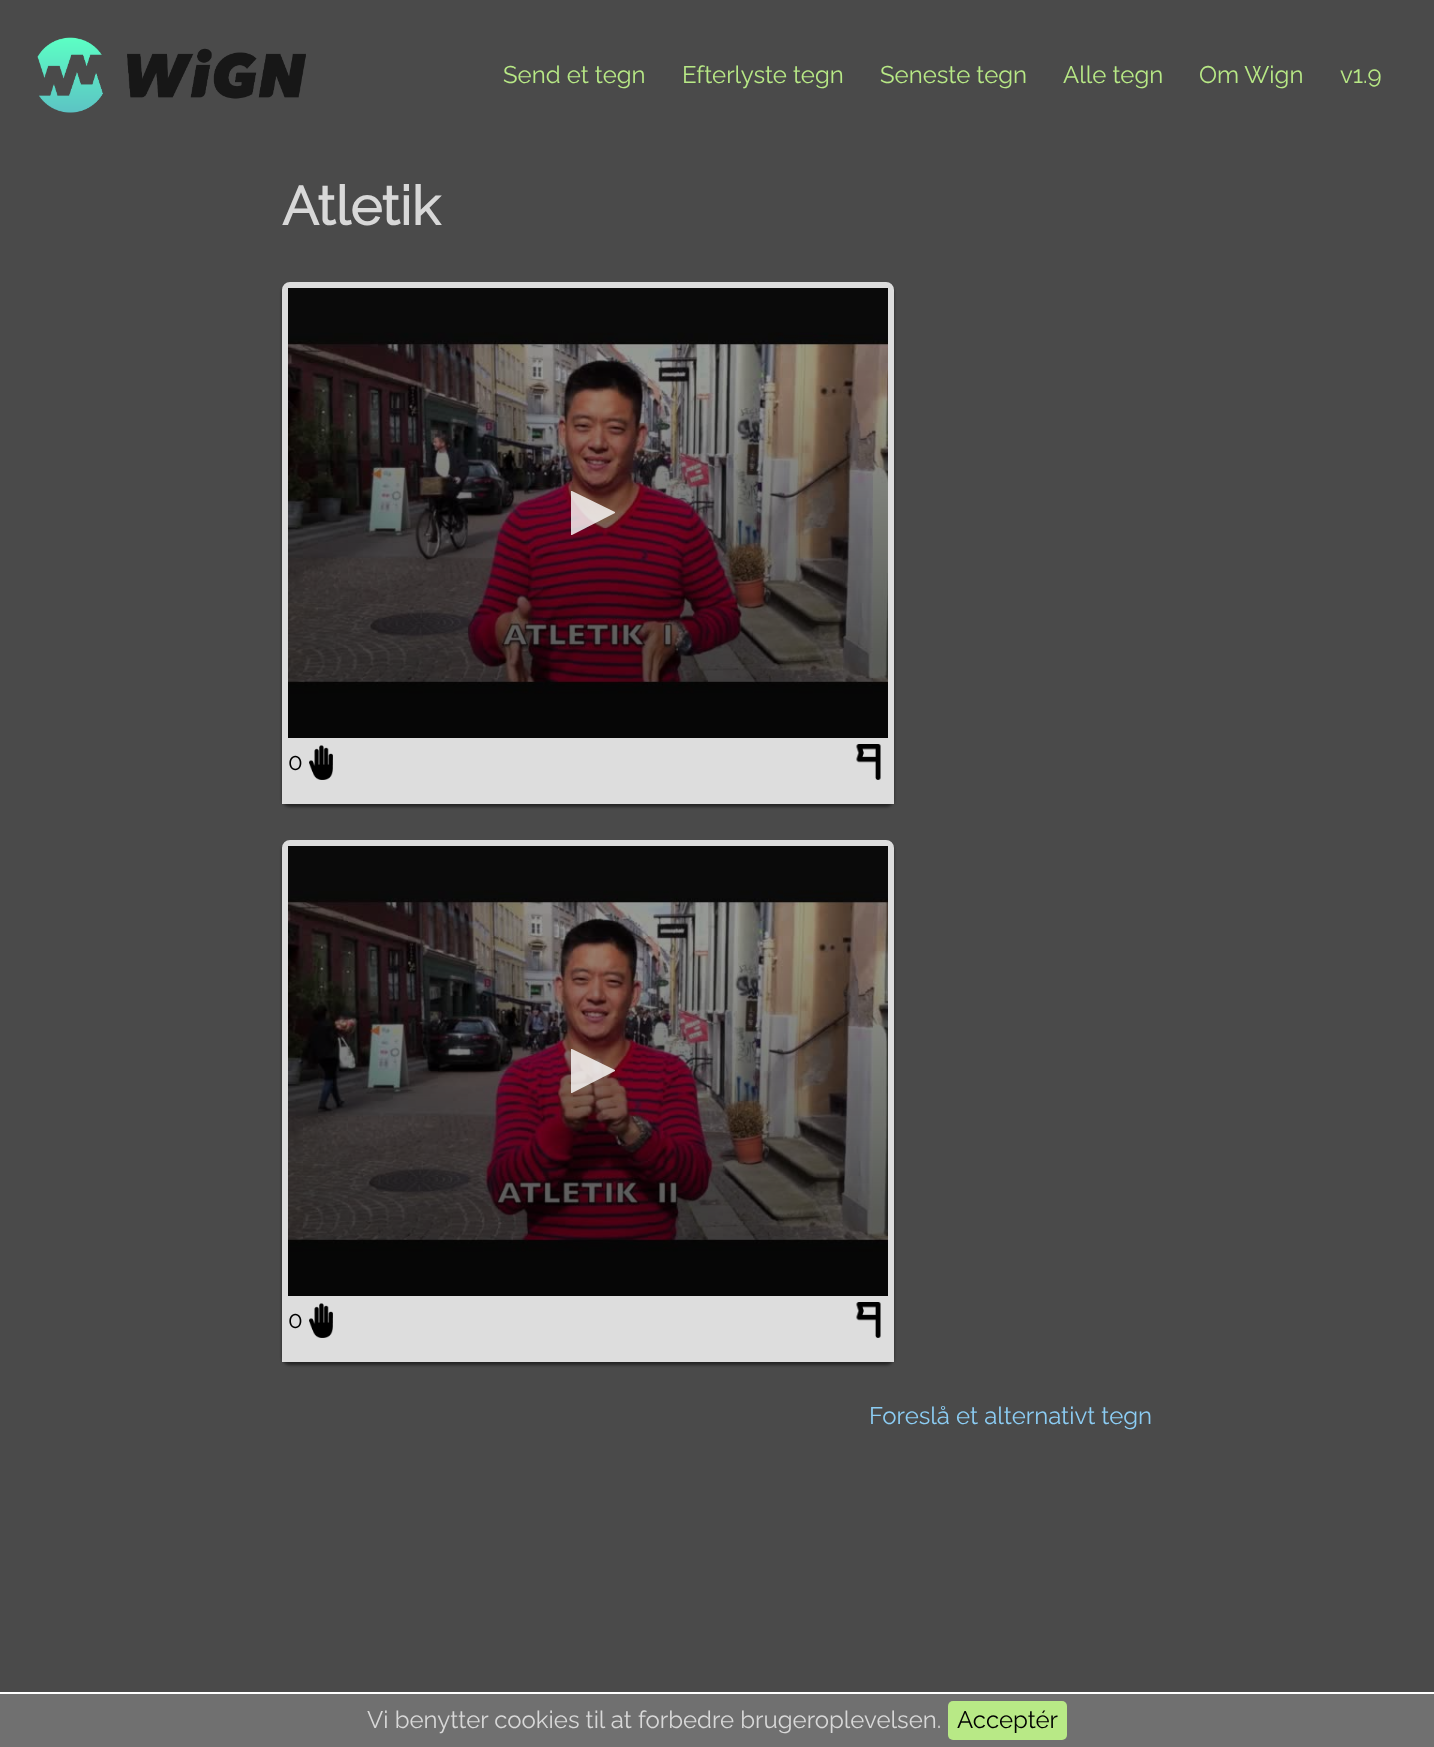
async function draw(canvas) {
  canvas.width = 1434;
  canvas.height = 1747;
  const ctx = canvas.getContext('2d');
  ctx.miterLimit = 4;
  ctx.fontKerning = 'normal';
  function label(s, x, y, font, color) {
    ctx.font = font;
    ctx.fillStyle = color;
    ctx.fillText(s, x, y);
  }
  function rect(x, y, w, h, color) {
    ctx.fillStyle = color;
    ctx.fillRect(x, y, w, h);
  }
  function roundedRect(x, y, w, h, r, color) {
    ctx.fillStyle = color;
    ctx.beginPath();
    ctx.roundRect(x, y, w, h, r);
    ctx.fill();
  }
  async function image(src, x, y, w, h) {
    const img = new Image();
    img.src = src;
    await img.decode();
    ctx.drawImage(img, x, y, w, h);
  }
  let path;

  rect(0, 0, 1434, 1747, '#4a4a4a');
  await image('assets/img1.png', 37, 37, 269, 76);
  label('Send et tegn', 503, 83, '24px Raleway', '#b8e986');
  label('Efterlyste tegn', 682, 83, '24px Raleway', '#b8e986');
  label('Seneste tegn', 880, 83, '24px Raleway', '#b8e986');
  label('Alle tegn', 1063, 83, '24px Raleway', '#b8e986');
  label('Om Wign', 1199, 83, '24px Raleway', '#b8e986');
  label('v1.9', 1340, 83, '24px Raleway', '#b8e986');
  label('Atletik', 282, 225, 'bold 54px Raleway', '#d8d8d8');
  ctx.fillStyle = '#00000080';
  ctx.filter = 'blur(1.5px)';
  ctx.beginPath();
  ctx.roundRect(282, 285, 612, 522, 8);
  ctx.fill();
  ctx.filter = 'none';
  ctx.fillStyle = '#ddd';
  ctx.beginPath();
  ctx.roundRect(285, 285, 606, 516, [5, 5, 0, 0]);
  ctx.fill();
  ctx.strokeStyle = '#ddd';
  ctx.lineWidth = 6;
  ctx.stroke();
  await image('assets/img2.png', 288, 288, 600, 450);
  ctx.fillStyle = '#ffffffcc';
  path = new Path2D('M572 535H571V491H572L615 512V513Z');
  ctx.fill(path);
  label('0', 288, 770, '24px Raleway', '#000');
  await image('assets/img3.png', 309, 745, 24, 35);
  await image('assets/img4.png', 856, 744, 25, 36);
  ctx.fillStyle = '#00000080';
  ctx.filter = 'blur(1.5px)';
  ctx.beginPath();
  ctx.roundRect(282, 843, 612, 522, 8);
  ctx.fill();
  ctx.filter = 'none';
  ctx.fillStyle = '#ddd';
  ctx.beginPath();
  ctx.roundRect(285, 843, 606, 516, [5, 5, 0, 0]);
  ctx.fill();
  ctx.stroke();
  await image('assets/img5.png', 288, 846, 600, 450);
  ctx.fillStyle = '#ffffffcc';
  path = new Path2D('M572 1093H571V1049H572L615 1070V1071Z');
  ctx.fill(path);
  label('0', 288, 1328, '24px Raleway', '#000');
  await image('assets/img3.png', 309, 1303, 24, 35);
  await image('assets/img4.png', 856, 1302, 25, 36);
  label('Foreslå et alternativt tegn', 869, 1424, '24px Raleway', '#8ccdf4');
  rect(0, 1694, 1434, 53, '#707070');
  rect(0, 1692, 1434, 2, '#fff');
  label('Vi benytter cookies til at forbedre brugeroplevelsen.', 367, 1728, '24px Raleway', '#d8d8d8');
  roundedRect(948, 1701, 119, 39, 5, '#b8e986');
  label('Acceptér', 957, 1728, '24px Raleway', '#000');
}

draw(document.querySelector('canvas'));
